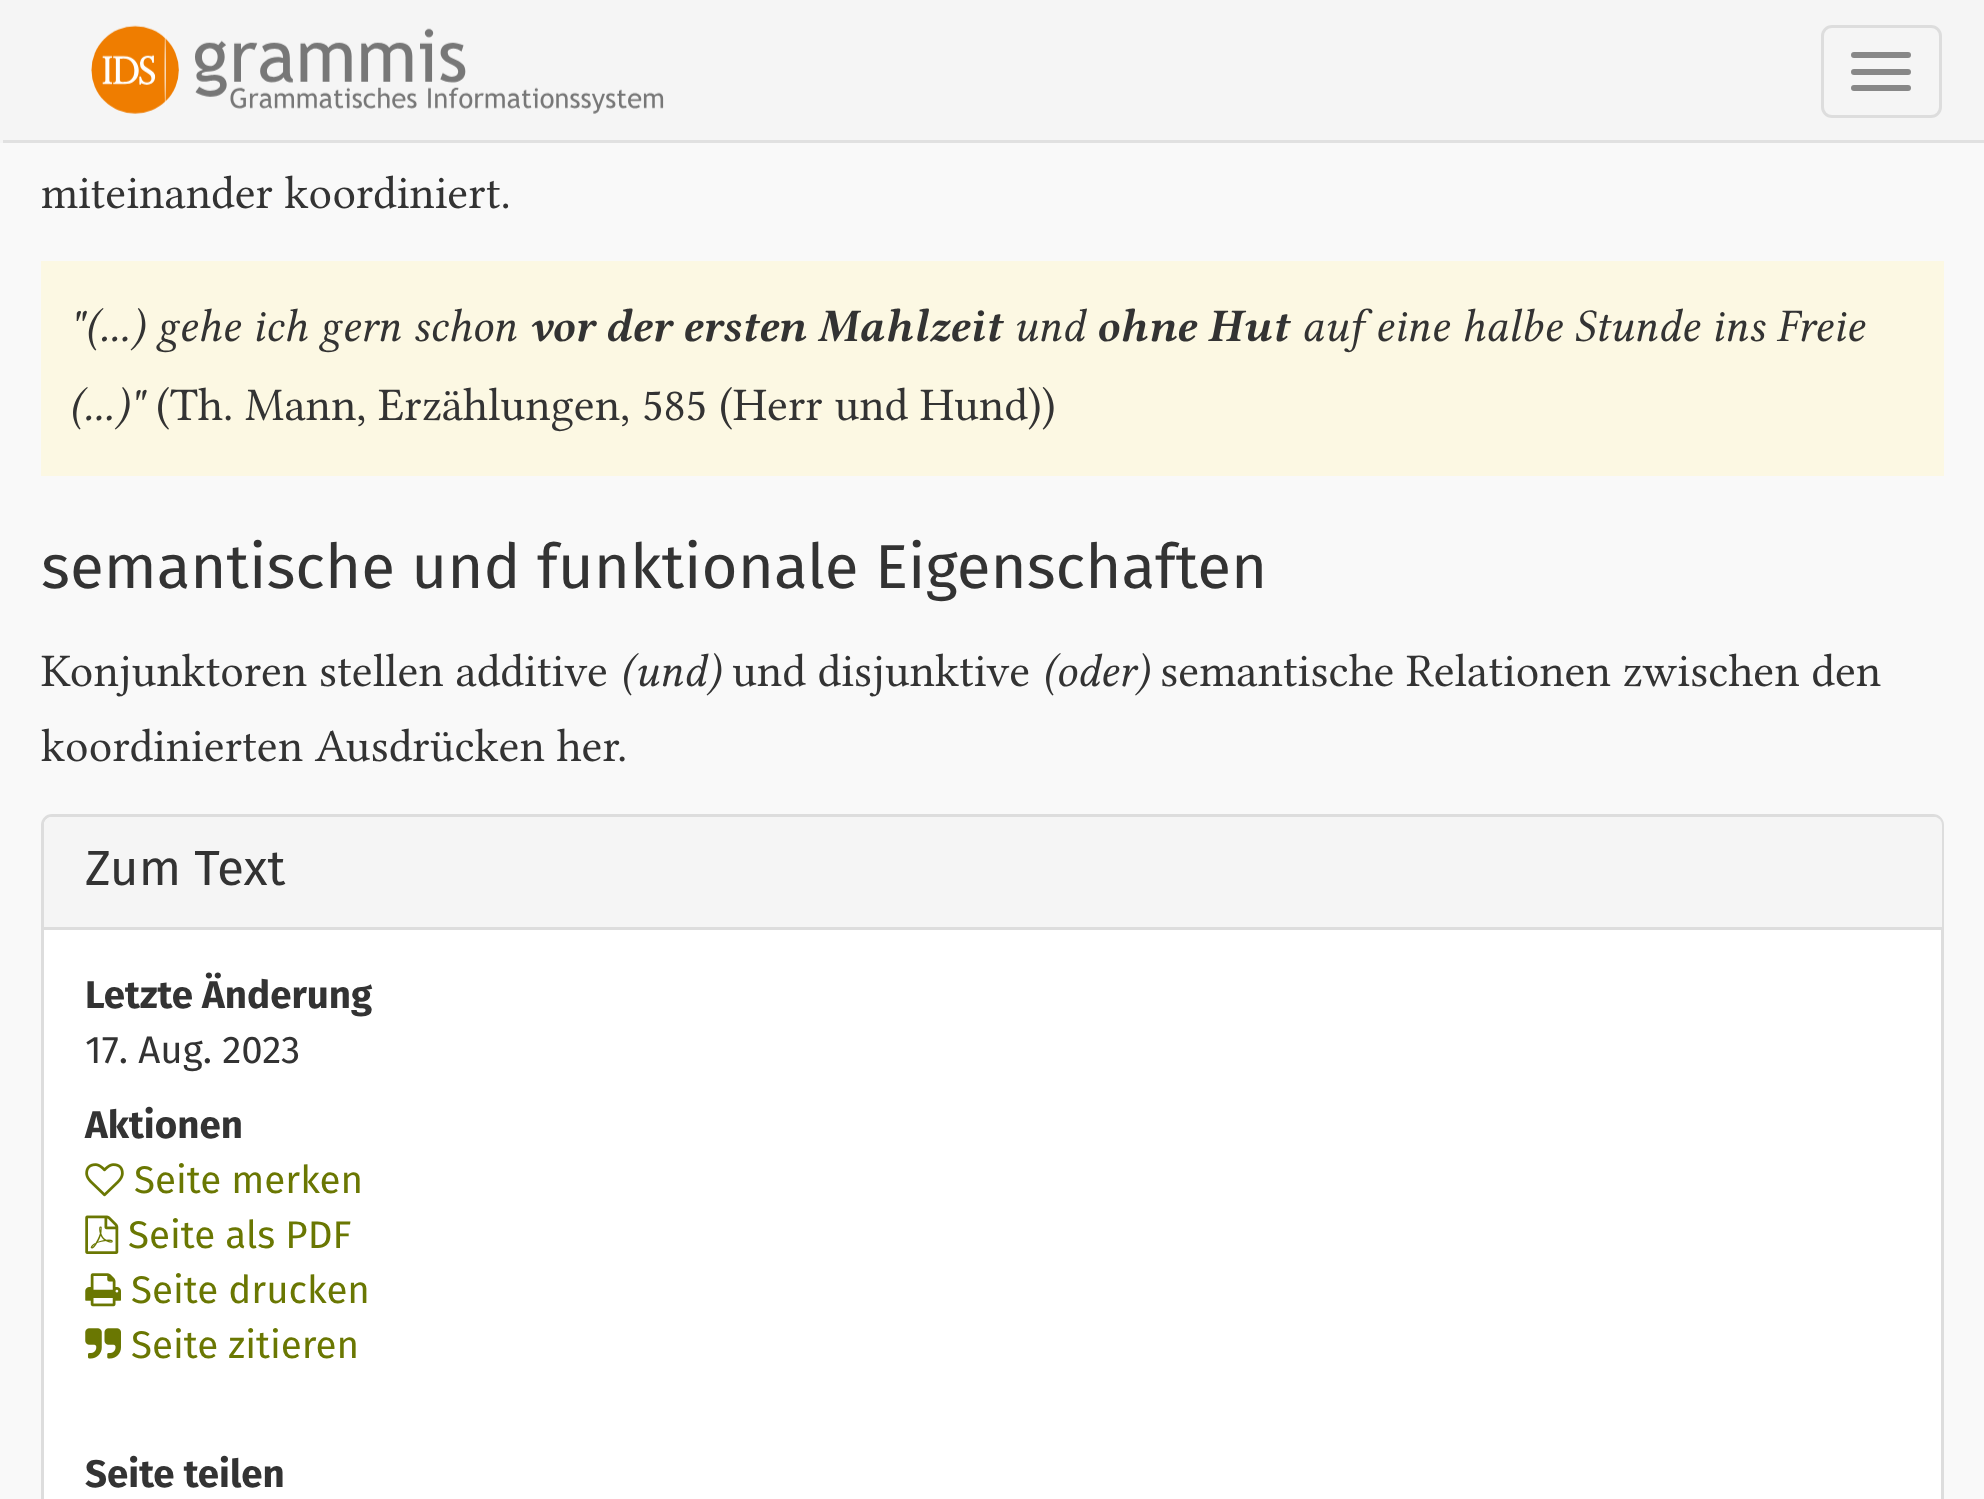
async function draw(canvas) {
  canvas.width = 1984;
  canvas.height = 1499;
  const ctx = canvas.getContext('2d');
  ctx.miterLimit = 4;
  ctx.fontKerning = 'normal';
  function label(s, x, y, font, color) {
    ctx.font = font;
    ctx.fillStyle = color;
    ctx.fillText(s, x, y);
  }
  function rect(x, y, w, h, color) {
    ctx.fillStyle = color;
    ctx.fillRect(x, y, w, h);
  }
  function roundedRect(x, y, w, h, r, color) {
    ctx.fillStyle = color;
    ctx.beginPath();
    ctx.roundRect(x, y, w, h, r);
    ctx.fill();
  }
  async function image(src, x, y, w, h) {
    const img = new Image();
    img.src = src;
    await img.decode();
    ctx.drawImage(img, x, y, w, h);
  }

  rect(0, 0, 1984, 1499, '#f9f9f9');
  rect(3, 0, 1981, 140, '#f5f5f5');
  rect(0, 140, 1984, 3, '#e1e1e1');
  rect(0, 0, 3, 143, '#f5f5f5');
  await image('assets/img1.png', 91, 25, 573, 89);
  ctx.beginPath();
  ctx.roundRect(1822.5, 26.5, 118, 90, 9.5);
  ctx.strokeStyle = '#ddd';
  ctx.lineWidth = 3;
  ctx.stroke();
  roundedRect(1851, 52, 60, 6, 3, '#888');
  roundedRect(1851, 69, 60, 6, 3, '#888');
  roundedRect(1851, 85, 60, 6, 3, '#888');
  label('miteinander koordiniert.', 41, 208, '46.75px Libertinus Serif', '#333');
  rect(41, 261, 1903, 215, '#fcf8e3');
  label('"(...) gehe ich gern schon', 69, 341, 'italic 46.75px Libertinus Serif', '#333');
  label('vor der ersten Mahlzeit', 528, 341, 'italic bold 46.75px Libertinus Serif', '#333');
  label('und', 1013, 341, 'italic 46.75px Libertinus Serif', '#333');
  label('ohne Hut', 1096, 341, 'italic bold 46.75px Libertinus Serif', '#333');
  label('auf eine halbe Stunde ins Freie', 1301, 341, 'italic 46.75px Libertinus Serif', '#333');
  label('(...)"', 69, 420, 'italic 46.75px Libertinus Serif', '#333');
  label('(Th. Mann, Erzählungen, 585 (Herr und Hund))', 156, 420, '46.75px Libertinus Serif', '#333');
  label('semantische und funktionale Eigenschaften', 41, 588, '61.9px Fira Sans', '#333');
  label('Konjunktoren stellen additive', 41, 686, '46.75px Libertinus Serif', '#333');
  label('(und)', 620, 686, 'italic 46.75px Libertinus Serif', '#333');
  label('und disjunktive', 732, 686, '46.75px Libertinus Serif', '#333');
  label('(oder)', 1042, 686, 'italic 46.75px Libertinus Serif', '#333');
  label('semantische Relationen zwischen den', 1160, 686, '46.75px Libertinus Serif', '#333');
  label('koordinierten Ausdrücken her.', 41, 761, '46.75px Libertinus Serif', '#333');
  ctx.fillStyle = '#fff';
  ctx.beginPath();
  ctx.roundRect(42.5, 815.5, 1900, 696, 9.5);
  ctx.fill();
  ctx.stroke();
  ctx.fillStyle = '#f5f5f5';
  ctx.beginPath();
  ctx.roundRect(44, 817, 1898, 113, [8, 8, 0, 0]);
  ctx.fill();
  rect(44, 927, 1898, 3, '#ddd');
  label('Zum Text', 85, 885, '49.5px Fira Sans', '#333');
  label('Letzte Änderung', 85, 1008, 'bold 38.5px Fira Sans', '#333');
  label('17. Aug. 2023', 85, 1063, '38.5px Fira Sans', '#333');
  label('Aktionen', 85, 1138, 'bold 38.5px Fira Sans', '#333');
  await image('assets/img2.png', 85, 1163, 39, 34);
  label('Seite merken', 134, 1193, '38.5px Fira Sans', '#6a7702');
  await image('assets/img3.png', 85, 1215, 34, 39);
  label('Seite als PDF', 128, 1248, '38.5px Fira Sans', '#6a7702');
  await image('assets/img4.png', 85, 1273, 36, 34);
  label('Seite drucken', 131, 1303, '38.5px Fira Sans', '#6a7702');
  await image('assets/img5.png', 85, 1328, 36, 31);
  label('Seite zitieren', 131, 1358, '38.5px Fira Sans', '#6a7702');
  label('Seite teilen', 85, 1487, 'bold 38.5px Fira Sans', '#333');
}

draw(document.querySelector('canvas'));
